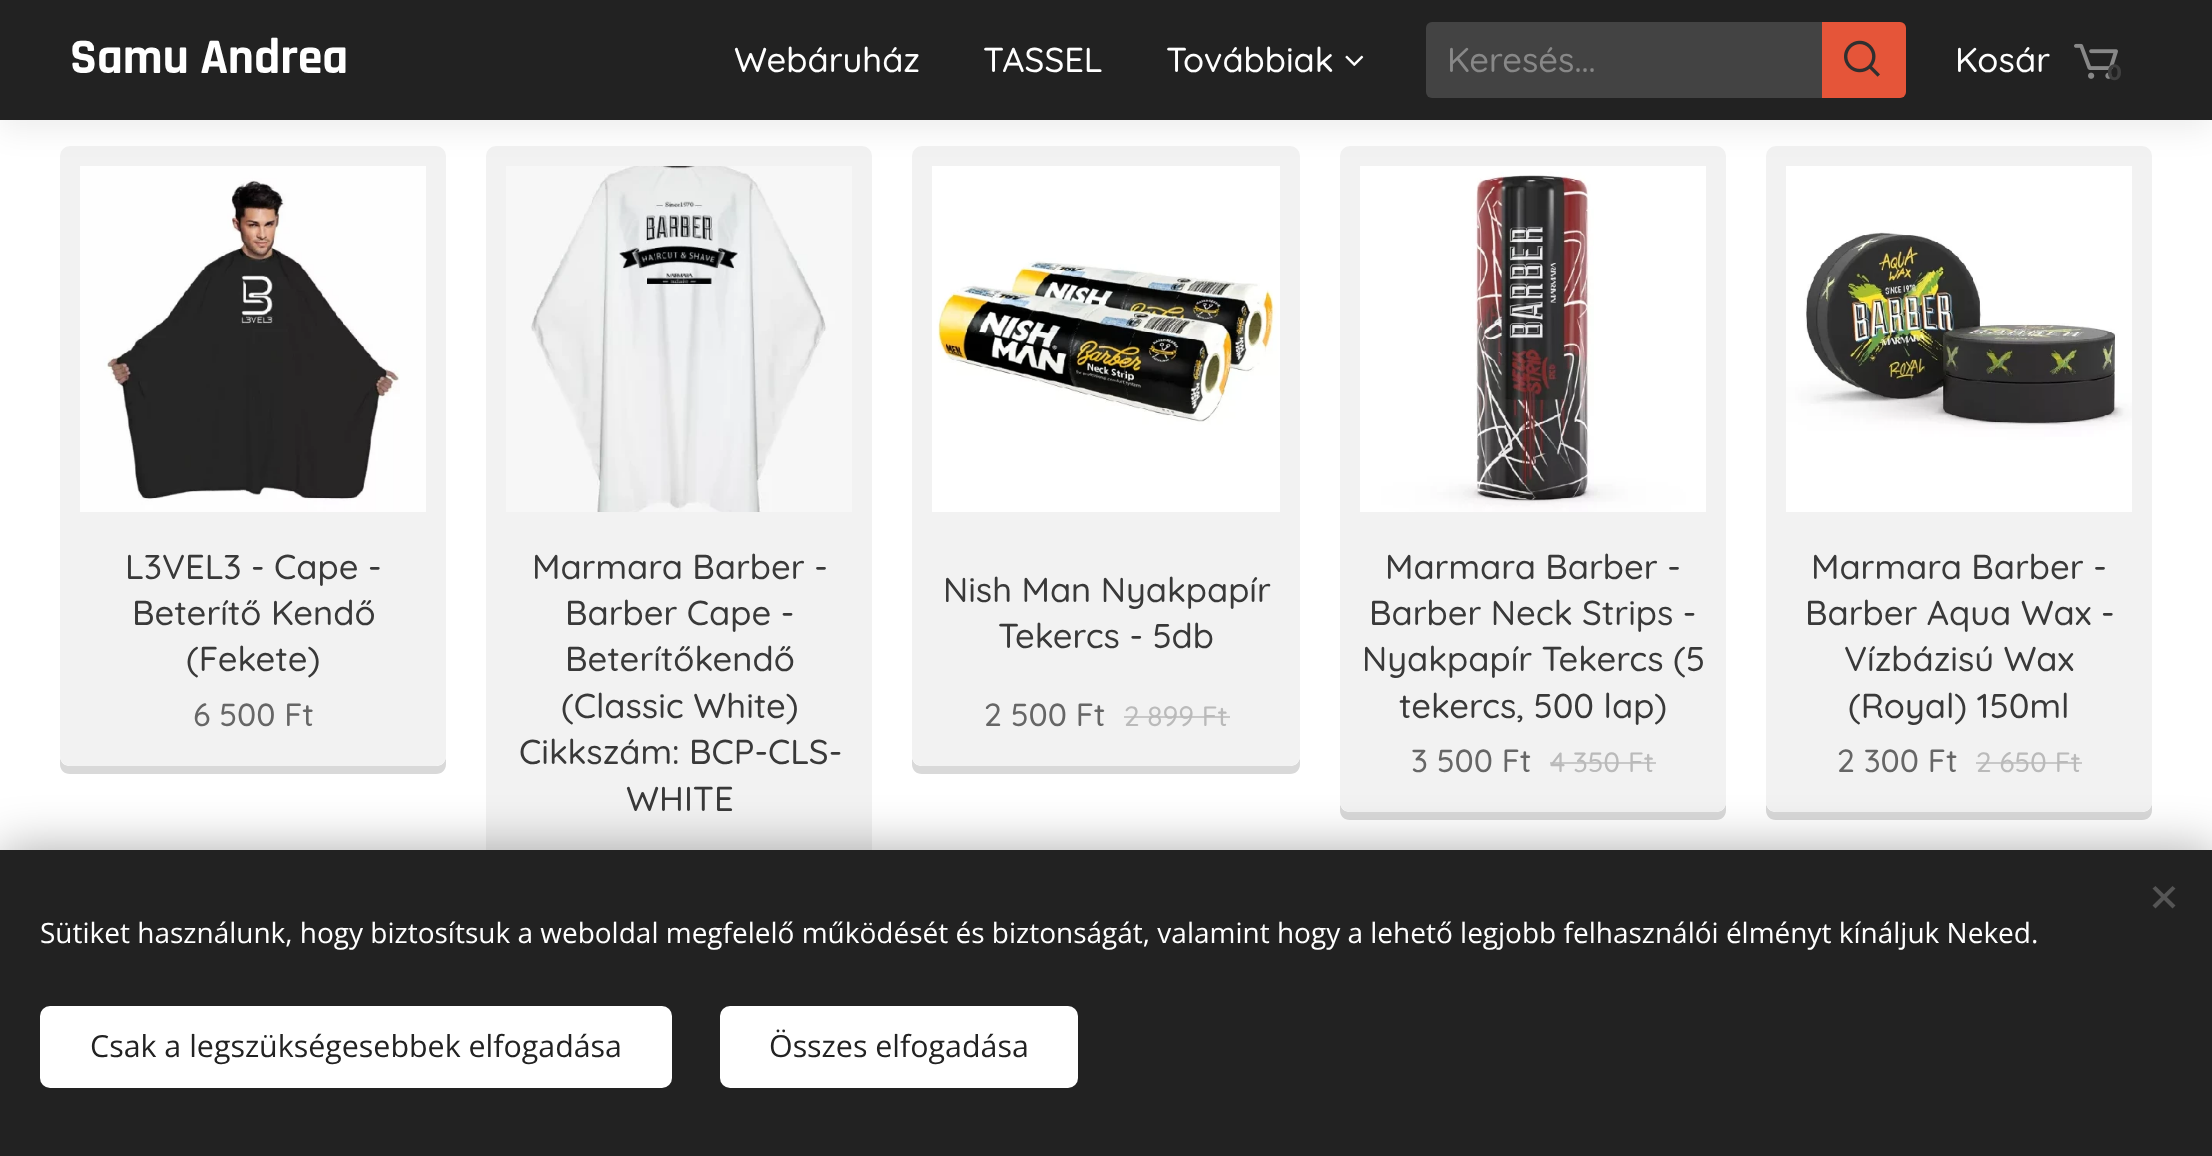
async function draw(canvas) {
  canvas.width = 2212;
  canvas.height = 1156;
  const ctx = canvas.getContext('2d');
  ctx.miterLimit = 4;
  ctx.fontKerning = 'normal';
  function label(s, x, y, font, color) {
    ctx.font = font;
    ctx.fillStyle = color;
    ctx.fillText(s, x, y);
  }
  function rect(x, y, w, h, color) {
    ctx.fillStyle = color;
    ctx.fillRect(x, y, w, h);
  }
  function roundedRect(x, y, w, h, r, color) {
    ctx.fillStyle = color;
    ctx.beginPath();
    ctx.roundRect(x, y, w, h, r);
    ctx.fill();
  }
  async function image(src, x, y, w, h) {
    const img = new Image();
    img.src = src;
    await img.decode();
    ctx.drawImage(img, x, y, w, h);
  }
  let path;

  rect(0, 0, 2212, 1156, '#fff');
  ctx.fillStyle = '#d9d9d9';
  path = new Path2D('M60 756V764C60 770 64 774 70 774H436C442 774 446 770 446 764V756C446 762 442 766 436 766H70C64 766 60 762 60 756Z');
  ctx.fill(path);
  roundedRect(60, 146, 386, 620, 10, '#f2f2f2');
  await image('assets/img4.png', 80, 166, 346, 346);
  roundedRect(486, 146, 386, 760, 10, '#f2f2f2');
  await image('assets/img5.png', 506, 166, 346, 346);
  ctx.fillStyle = '#d9d9d9';
  path = new Path2D('M912 756V764C912 770 916 774 922 774H1290C1296 774 1300 770 1300 764V756C1300 762 1296 766 1290 766H922C916 766 912 762 912 756Z');
  ctx.fill(path);
  roundedRect(912, 146, 388, 620, 10, '#f2f2f2');
  await image('assets/img6.png', 932, 166, 348, 346);
  ctx.fillStyle = '#d9d9d9';
  path = new Path2D('M1340 802V810C1340 816 1344 820 1350 820H1716C1722 820 1726 816 1726 810V802C1726 808 1722 812 1716 812H1350C1344 812 1340 808 1340 802Z');
  ctx.fill(path);
  roundedRect(1340, 146, 386, 666, 10, '#f2f2f2');
  await image('assets/img7.png', 1360, 166, 346, 346);
  ctx.fillStyle = '#d9d9d9';
  path = new Path2D('M1766 802V810C1766 816 1770 820 1776 820H2142C2148 820 2152 816 2152 810V802C2152 808 2148 812 2142 812H1776C1770 812 1766 808 1766 802Z');
  ctx.fill(path);
  roundedRect(1766, 146, 386, 666, 10, '#f2f2f2');
  await image('assets/img8.png', 1786, 166, 346, 346);
  ctx.fillStyle = '#00000012';
  ctx.filter = 'blur(15px)';
  ctx.beginPath();
  ctx.rect(0, 10, 2212, 120);
  ctx.fill();
  ctx.filter = 'none';
  rect(0, 0, 2212, 120, '#222');
  label('Samu Andrea', 70, 73, 'bold 50px Rajdhani', '#fff');
  label('Webáruház', 734, 72, '500 34.5px Quicksand', '#fff');
  label('TASSEL', 983, 72, '500 34.5px Quicksand', '#fff');
  label('Továbbiak', 1166, 72, '500 34.5px Quicksand', '#fff');
  await image('assets/img1.png', 1345, 55, 19, 11);
  ctx.fillStyle = '#434343';
  ctx.beginPath();
  ctx.roundRect(1426, 22, 396, 76, [6, 0, 0, 6]);
  ctx.fill();
  label('Keresés...', 1447, 72, '500 34.5px Quicksand', '#888');
  ctx.fillStyle = '#e55539';
  ctx.beginPath();
  ctx.roundRect(1822, 22, 84, 76, [0, 6, 6, 0]);
  ctx.fill();
  await image('assets/img2.png', 1844, 40, 36, 37);
  label('Kosár', 1955, 72, '500 34.5px Quicksand', '#fff');
  await image('assets/img3.png', 2074, 43, 44, 36);
  label('0', 2107, 80, 'bold 22px Montserrat', '#3f3f3f');
  label('L3VEL3 - Cape -', 125, 579, '500 34.5px Quicksand', '#393939');
  label('Beterítő Kendő', 132, 625, '500 34.5px Quicksand', '#393939');
  label('(Fekete)', 186, 671, '500 34.5px Quicksand', '#393939');
  label('6 500 Ft', 193, 726, '500 32px Quicksand', '#666');
  label('Marmara Barber -', 532, 579, '500 34.5px Quicksand', '#393939');
  label('Barber Cape -', 565, 625, '500 34.5px Quicksand', '#393939');
  label('Beterítőkendő', 565, 671, '500 34.5px Quicksand', '#393939');
  label('(Classic White)', 561, 718, '500 34.5px Quicksand', '#393939');
  label('Cikkszám: BCP-CLS-', 519, 764, '500 34.5px Quicksand', '#393939');
  label('WHITE', 626, 811, '500 34.5px Quicksand', '#393939');
  label('Nish Man Nyakpapír', 943, 602, '500 34.5px Quicksand', '#393939');
  label('Tekercs - 5db', 998, 648, '500 34.5px Quicksand', '#393939');
  label('2 500 Ft', 984, 726, '500 32px Quicksand', '#666');
  label('2 899 Ft', 1124, 726, '500 28px Quicksand', '#bababa');
  rect(1124, 716, 106, 2, '#babababf');
  label('Marmara Barber -', 1385, 579, '500 34.5px Quicksand', '#393939');
  label('Barber Neck Strips -', 1369, 625, '500 34.5px Quicksand', '#393939');
  label('Nyakpapír Tekercs (5', 1362, 671, '500 34.5px Quicksand', '#393939');
  label('tekercs, 500 lap)', 1399, 718, '500 34.5px Quicksand', '#393939');
  label('3 500 Ft', 1411, 772, '500 32px Quicksand', '#666');
  label('4 350 Ft', 1550, 772, '500 28px Quicksand', '#bababa');
  rect(1550, 762, 106, 2, '#babababf');
  label('Marmara Barber -', 1811, 579, '500 34.5px Quicksand', '#393939');
  label('Barber Aqua Wax -', 1805, 625, '500 34.5px Quicksand', '#393939');
  label('Vízbázisú Wax', 1844, 671, '500 34.5px Quicksand', '#393939');
  label('(Royal) 150ml', 1848, 718, '500 34.5px Quicksand', '#393939');
  label('2 300 Ft', 1837, 772, '500 32px Quicksand', '#666');
  label('2 650 Ft', 1976, 772, '500 28px Quicksand', '#bababa');
  rect(1976, 762, 106, 2, '#babababf');
  ctx.fillStyle = '#00000054';
  ctx.filter = 'blur(25px)';
  ctx.beginPath();
  ctx.rect(0, 850, 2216, 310);
  ctx.fill();
  ctx.filter = 'none';
  rect(0, 850, 2212, 306, '#222');
  ctx.fillStyle = '#555';
  path = new Path2D('M2152.5 905.5L2172.5 886L2175.5 888.5L2155.5 908.5Z');
  ctx.fill(path);
  path = new Path2D('M2155.5 886L2175.5 905.5L2172.5 908.5L2152.5 888.5Z');
  ctx.fill(path);
  label('Sütiket használunk, hogy biztosítsuk a weboldal megfelelő működését és biztonságát, valamint hogy a lehető legjobb felhasználói élményt kínáljuk Neked.', 40, 943, '28px Open Sans', '#fff');
  roundedRect(40, 1006, 632, 82, 10, '#fff');
  label('Csak a legszükségesebbek elfogadása', 90, 1057, '30.4px Open Sans', '#222');
  roundedRect(720, 1006, 358, 82, 10, '#fff');
  label('Összes elfogadása', 769, 1057, '30.4px Open Sans', '#222');
}

draw(document.querySelector('canvas'));
